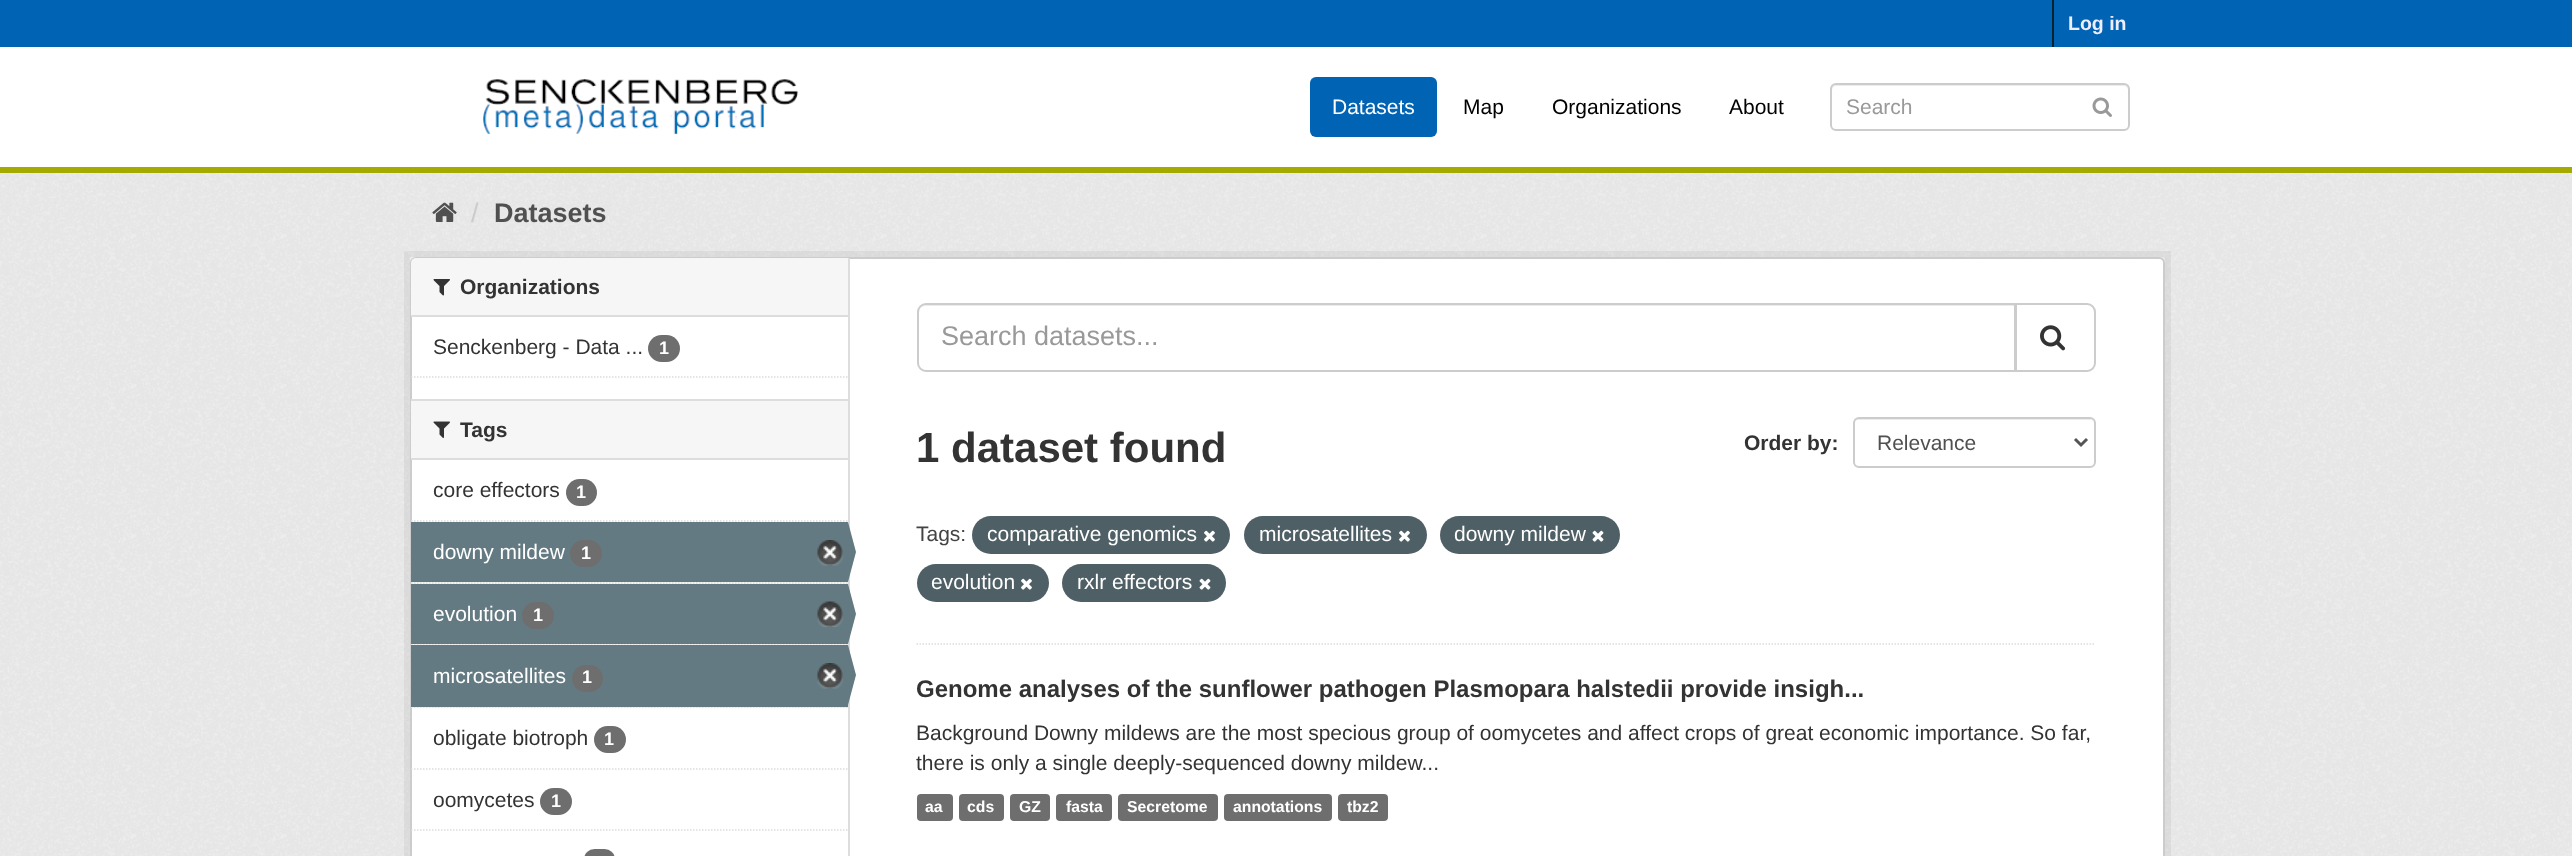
async function draw(canvas) {
  canvas.width = 2572;
  canvas.height = 856;
  const ctx = canvas.getContext('2d');
  ctx.miterLimit = 4;
  ctx.fontKerning = 'normal';
  function label(s, x, y, font, color) {
    ctx.font = font;
    ctx.fillStyle = color;
    ctx.fillText(s, x, y);
  }
  function rect(x, y, w, h, color) {
    ctx.fillStyle = color;
    ctx.fillRect(x, y, w, h);
  }
  function roundedRect(x, y, w, h, r, color) {
    ctx.fillStyle = color;
    ctx.beginPath();
    ctx.roundRect(x, y, w, h, r);
    ctx.fill();
  }
  async function image(src, x, y, w, h) {
    const img = new Image();
    img.src = src;
    await img.decode();
    ctx.drawImage(img, x, y, w, h);
  }
  let path;

  rect(0, 0, 2572, 856, '#fff');
  rect(0, 0, 2572, 47, '#0063b4');
  rect(2052, 0, 2, 47, '#00232e');
  label('Log in', 2068, 30, 'bold 19.5px Liberation Sans', '#eef');
  rect(0, 167, 2572, 6, '#a4aa00');
  await image('assets/img1.png', 483, 79, 316, 56);
  roundedRect(1310, 77, 127, 60, 6, '#0063b4');
  label('Datasets', 1332, 114, '21px Liberation Sans', '#fff');
  label('Map', 1463, 114, '21px Liberation Sans', '#000');
  label('Organizations', 1552, 114, '21px Liberation Sans', '#000');
  label('About', 1729, 114, '21px Liberation Sans', '#000');
  ctx.fillStyle = '#ececec';
  path = new Path2D('M1836 86H2124C2126 86 2128 88 2128 90V127C2129 126 2129 125 2129 124V89C2129 86 2127 84 2124 84H1837C1834 84 1832 86 1832 89V90C1832 88 1834 86 1836 86Z');
  ctx.fill(path);
  ctx.beginPath();
  ctx.roundRect(1831, 84, 298, 46, 5);
  ctx.strokeStyle = '#ccc';
  ctx.lineWidth = 2;
  ctx.stroke();
  label('Search', 1846, 114, '21px Liberation Sans', '#999');
  await image('assets/img2.png', 2092, 97, 20, 20);
  rect(0, 173, 2572, 683, '#eee');
  await image('assets/img3.png', 0, 173, 2572, 683);
  await image('assets/img4.png', 432, 202, 25, 20);
  label('/', 471, 222, '27px Liberation Sans', '#ccc');
  label('Datasets', 494, 222, 'bold 27px Liberation Sans', '#505050');
  ctx.strokeStyle = '#0000000d';
  ctx.lineWidth = 6;
  ctx.strokeRect(407, 254, 1761, 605);
  ctx.fillStyle = '#fff';
  ctx.beginPath();
  ctx.roundRect(411, 258, 1753, 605, 5);
  ctx.fill();
  ctx.strokeStyle = '#ccc';
  ctx.lineWidth = 2;
  ctx.stroke();
  ctx.fillStyle = '#f6f6f6';
  ctx.beginPath();
  ctx.roundRect(411, 258, 437, 59, [5, 0, 0, 0]);
  ctx.fill();
  rect(411, 315, 437, 2, '#ddd');
  await image('assets/img5.png', 433, 279, 17, 17);
  label('Organizations', 460, 294, 'bold 21px Liberation Sans', '#333');
  label('Senckenberg - Data ...', 433, 354, '21px Liberation Sans', '#333');
  roundedRect(648, 335, 32, 27, 13.5, '#6e6e6e');
  label('1', 659, 354, 'bold 18px Liberation Sans', '#fff');
  path = new Path2D('M411 377H847.5');
  ctx.strokeStyle = '#ddd';
  ctx.lineWidth = 1.5;
  ctx.setLineDash([1.5, 1.5]);
  ctx.stroke(path);
  rect(411, 401, 437, 57, '#f6f6f6');
  rect(411, 399, 437, 2, '#ddd');
  rect(411, 458, 437, 2, '#ddd');
  await image('assets/img6.png', 433, 421, 17, 17);
  label('Tags', 460, 437, 'bold 21px Liberation Sans', '#333');
  path = new Path2D('M411 521H847.5');
  ctx.stroke(path);
  label('core effectors', 433, 497, '21px Liberation Sans', '#333');
  roundedRect(566, 479, 31, 27, 13.5, '#6e6e6e');
  label('1', 576, 498, 'bold 18px Liberation Sans', '#fff');
  rect(411, 582, 437, 2, '#f6f6f6');
  path = new Path2D('M411 583H847.5');
  ctx.stroke(path);
  rect(411, 522, 437, 60, '#647a82');
  label('downy mildew', 433, 559, '21px Liberation Sans', '#fff');
  roundedRect(570, 540, 32, 27, 13.5, '#6e6e6e');
  label('1', 581, 559, 'bold 18px Liberation Sans', '#fff');
  await image('assets/img7.png', 817, 540, 26, 26);
  rect(848, 258, 2, 598, '#ddd');
  ctx.fillStyle = '#647a82';
  path = new Path2D('M848 582V522L856 552Z');
  ctx.fill(path);
  rect(411, 644, 437, 1, '#f6f6f6');
  path = new Path2D('M411 644H847.5');
  ctx.stroke(path);
  rect(411, 584, 437, 60, '#647a82');
  label('evolution', 433, 621, '21px Liberation Sans', '#fff');
  roundedRect(522, 602, 32, 27, 13.5, '#6e6e6e');
  label('1', 533, 621, 'bold 18px Liberation Sans', '#fff');
  await image('assets/img8.png', 817, 601, 26, 26);
  ctx.fillStyle = '#647a82';
  path = new Path2D('M848 644V584L856 614Z');
  ctx.fill(path);
  rect(411, 707, 437, 1, '#f6f6f6');
  path = new Path2D('M411 707H847.5');
  ctx.stroke(path);
  rect(411, 645, 437, 62, '#647a82');
  label('microsatellites', 433, 683, '21px Liberation Sans', '#fff');
  roundedRect(572, 665, 31, 27, 13.5, '#6e6e6e');
  label('1', 582, 683, 'bold 18px Liberation Sans', '#fff');
  await image('assets/img7.png', 817, 663, 26, 26);
  ctx.fillStyle = '#647a82';
  path = new Path2D('M848 705V645L856 675Z');
  ctx.fill(path);
  path = new Path2D('M411 769H847.5');
  ctx.stroke(path);
  label('obligate biotroph', 433, 745, '21px Liberation Sans', '#333');
  roundedRect(594, 726, 32, 27, 13.5, '#6e6e6e');
  label('1', 604, 745, 'bold 18px Liberation Sans', '#fff');
  path = new Path2D('M411 830H847.5');
  ctx.stroke(path);
  label('oomycetes', 433, 807, '21px Liberation Sans', '#333');
  roundedRect(540, 788, 32, 27, 13.5, '#6e6e6e');
  label('1', 551, 807, 'bold 18px Liberation Sans', '#fff');
  roundedRect(584, 849, 31, 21, 13.5, '#6e6e6e');
  path = new Path2D('M916.5 644H2095.5');
  ctx.stroke(path);
  ctx.fillStyle = '#ececec';
  path = new Path2D('M926 306H2014V371H2015V305H926C922 305 918 309 918 313V314C918 309 921 306 926 306Z');
  ctx.fill(path);
  ctx.beginPath();
  ctx.roundRect(918, 304, 1097, 67, [8, 0, 0, 8]);
  ctx.strokeStyle = '#ccc';
  ctx.lineWidth = 2;
  ctx.setLineDash([]);
  ctx.stroke();
  label('Search datasets...', 941, 345, '27px Liberation Sans', '#999');
  ctx.fillStyle = '#fff';
  ctx.beginPath();
  ctx.roundRect(2016, 304, 79, 67, [0, 8, 8, 0]);
  ctx.fill();
  ctx.stroke();
  await image('assets/img9.png', 2040, 325, 26, 26);
  label('1 dataset found', 916, 462, 'bold 42px Liberation Sans', '#333');
  label('Order by:', 1744, 450, 'bold 21px Liberation Sans', '#333');
  ctx.fillStyle = '#ececec';
  path = new Path2D('M1858 420H2090C2092 420 2094 422 2094 424C2094 421 2092 419 2089 419H1859C1856 419 1854 421 1854 424C1854 422 1856 420 1858 420Z');
  ctx.fill(path);
  ctx.beginPath();
  ctx.roundRect(1854, 418, 241, 49, 5);
  ctx.stroke();
  path = new Path2D('M2075 439L2081 445L2087 439');
  ctx.strokeStyle = '#555';
  ctx.lineWidth = 3;
  ctx.stroke(path);
  label('Relevance', 1877, 450, '21px Liberation Sans', '#505050');
  label('Tags:', 916, 541, '21px Liberation Sans', '#444');
  roundedRect(972, 516, 258, 38, 19, '#4e5f65');
  label('comparative genomics', 987, 541, '21px Liberation Sans', '#fff');
  await image('assets/img10.png', 1204, 530, 11, 12);
  roundedRect(1244, 516, 183, 38, 19, '#4e5f65');
  label('microsatellites', 1259, 541, '21px Liberation Sans', '#fff');
  await image('assets/img10.png', 1399, 530, 11, 12);
  roundedRect(1440, 516, 180, 38, 19, '#4e5f65');
  label('downy mildew', 1454, 541, '21px Liberation Sans', '#fff');
  await image('assets/img11.png', 1592, 530, 12, 12);
  roundedRect(917, 564, 132, 38, 19, '#4e5f65');
  label('evolution', 931, 589, '21px Liberation Sans', '#fff');
  await image('assets/img10.png', 1021, 578, 11, 12);
  roundedRect(1062, 564, 164, 38, 19, '#4e5f65');
  label('rxlr effectors', 1077, 589, '21px Liberation Sans', '#fff');
  await image('assets/img11.png', 1199, 578, 12, 12);
  label('Genome analyses of the sunflower pathogen Plasmopara halstedii provide insigh...', 916, 697, 'bold 24px Liberation Sans', '#333');
  label('Background Downy mildews are the most specious group of oomycetes and affect crops of great economic importance. So far,', 916, 740, '21px Liberation Sans', '#333');
  label('there is only a single deeply-sequenced downy mildew...', 916, 770, '21px Liberation Sans', '#333');
  roundedRect(917, 794, 36, 27, 4, '#6e6e6e');
  label('aa', 925, 812, 'bold 15.75px Liberation Sans', '#fff');
  roundedRect(959, 794, 45, 27, 4, '#6e6e6e');
  label('cds', 967, 812, 'bold 15.75px Liberation Sans', '#fff');
  roundedRect(1010, 794, 40, 27, 4, '#6e6e6e');
  label('GZ', 1019, 812, 'bold 15.75px Liberation Sans', '#fff');
  roundedRect(1056, 794, 56, 27, 4, '#6e6e6e');
  label('fasta', 1066, 812, 'bold 15.75px Liberation Sans', '#fff');
  roundedRect(1118, 794, 100, 27, 4, '#6e6e6e');
  label('Secretome', 1127, 812, 'bold 15.75px Liberation Sans', '#fff');
  roundedRect(1224, 794, 108, 27, 4, '#6e6e6e');
  label('annotations', 1233, 812, 'bold 15.75px Liberation Sans', '#fff');
  roundedRect(1338, 794, 50, 27, 4, '#6e6e6e');
  label('tbz2', 1347, 812, 'bold 15.75px Liberation Sans', '#fff');
}

draw(document.querySelector('canvas'));
